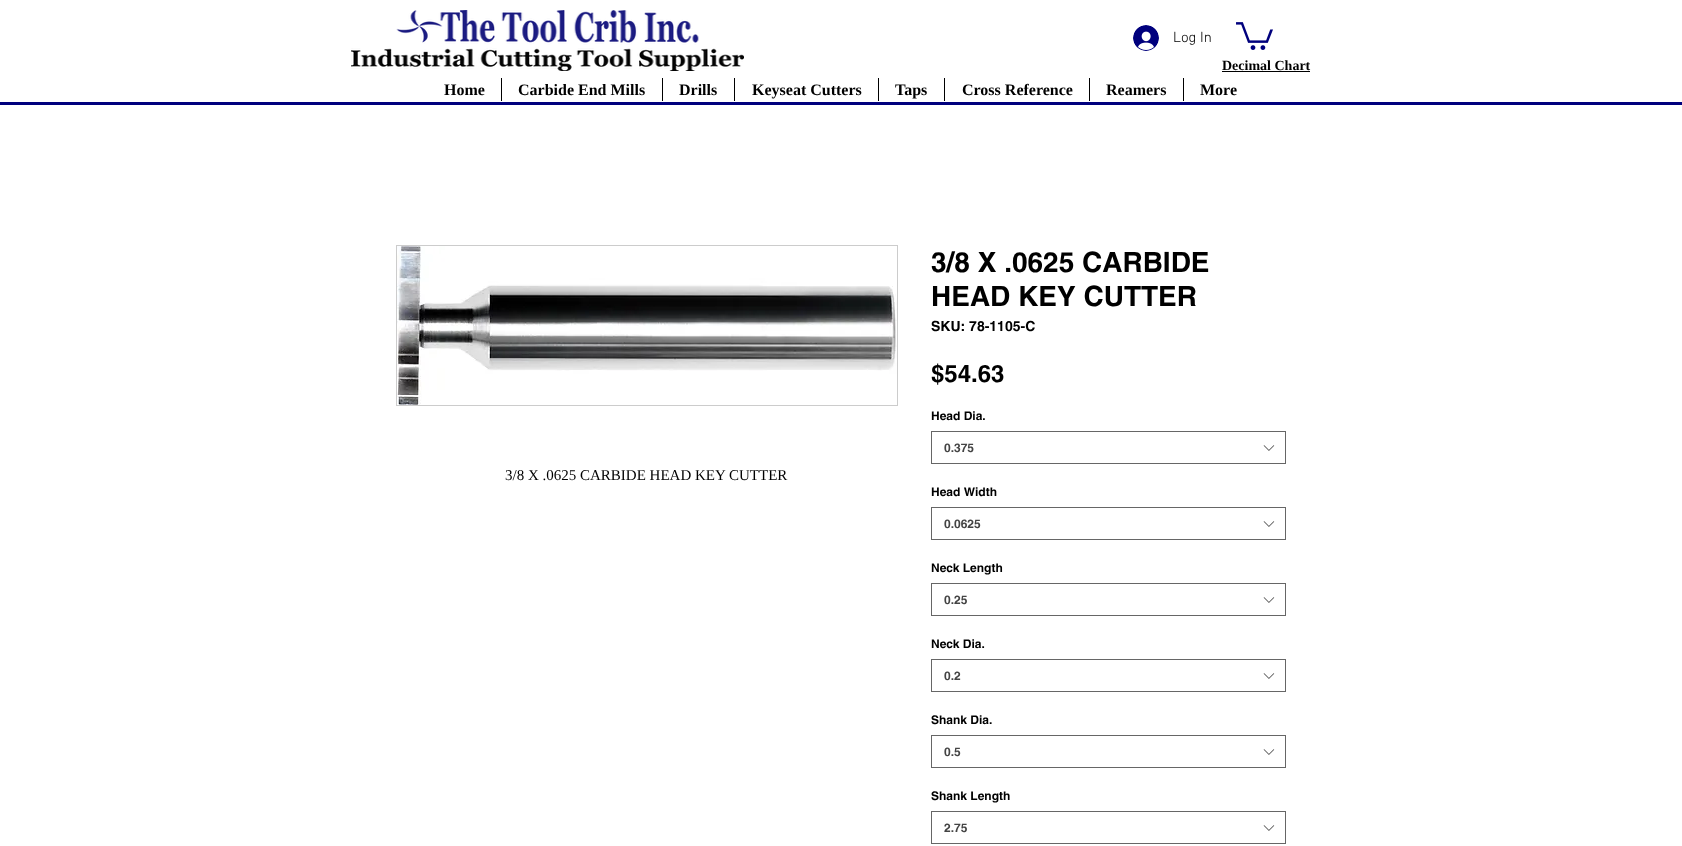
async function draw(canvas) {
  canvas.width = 1682;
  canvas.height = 846;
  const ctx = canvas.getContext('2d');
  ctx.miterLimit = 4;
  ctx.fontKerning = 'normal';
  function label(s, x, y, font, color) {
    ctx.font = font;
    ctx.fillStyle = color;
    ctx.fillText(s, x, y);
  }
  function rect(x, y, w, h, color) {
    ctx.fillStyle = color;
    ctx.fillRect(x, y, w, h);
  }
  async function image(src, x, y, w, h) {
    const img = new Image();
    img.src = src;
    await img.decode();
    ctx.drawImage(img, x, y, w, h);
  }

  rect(0, 0, 1682, 846, '#fff');
  await image('assets/img1.png', 351, 10, 393, 61);
  await image('assets/img2.png', 1133, 25, 26, 26);
  label('Log In', 1173, 42, '300 15px "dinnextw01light"', '#000');
  await image('assets/img3.png', 1236, 22, 37, 28);
  label('Decimal Chart', 1222, 70, 'bold 14px Liberation Serif', '#000');
  rect(1222, 71, 88, 1, '#000');
  label('Home', 444, 95, 'bold 16px Liberation Serif', '#000');
  rect(501, 78, 1, 23, '#000');
  label('Carbide End Mills', 518, 95, 'bold 16px Liberation Serif', '#000');
  rect(662, 78, 1, 23, '#000');
  label('Drills', 679, 95, 'bold 16px Liberation Serif', '#000');
  rect(734, 78, 1, 23, '#000');
  label('Keyseat Cutters', 752, 95, 'bold 16px Liberation Serif', '#000');
  rect(878, 78, 1, 23, '#000');
  label('Taps', 895, 95, 'bold 16px Liberation Serif', '#000');
  rect(944, 78, 1, 23, '#000');
  label('Cross Reference', 962, 95, 'bold 16px Liberation Serif', '#000');
  rect(1089, 78, 1, 23, '#000');
  label('Reamers', 1106, 95, 'bold 16px Liberation Serif', '#000');
  rect(1183, 78, 1, 23, '#000');
  label('More', 1200, 95, 'bold 16px Liberation Serif', '#000');
  rect(0, 102, 1682, 3, '#00007d');
  ctx.strokeStyle = '#ccc';
  ctx.strokeRect(396.5, 245.5, 501, 160);
  await image('assets/img4.png', 397, 246, 500, 159);
  label('3/8 X .0625 CARBIDE HEAD KEY CUTTER', 505, 480, '15px Liberation Serif', '#000');
  label('3/8 X .0625 CARBIDE', 931, 272, 'bold 28px helvetica', '#000');
  label('HEAD KEY CUTTER', 931, 306, 'bold 28px helvetica', '#000');
  label('SKU: 78-1105-C', 931, 331, 'bold 14px helvetica', '#000');
  label('$54.63', 931, 382, 'bold 24px helvetica', '#000');
  label('Head Dia.', 931, 420, 'bold 12px helvetica', '#000');
  ctx.strokeStyle = '#666';
  ctx.strokeRect(931.5, 431.5, 354, 32);
  label('0.375', 944, 452, 'bold 12px helvetica', '#444');
  await image('assets/img5.png', 1263, 445, 12, 6);
  label('Head Width', 931, 496, 'bold 12px helvetica', '#000');
  ctx.strokeRect(931.5, 507.5, 354, 32);
  label('0.0625', 944, 528, 'bold 12px helvetica', '#444');
  await image('assets/img5.png', 1263, 521, 12, 6);
  label('Neck Length', 931, 572, 'bold 12px helvetica', '#000');
  ctx.strokeRect(931.5, 583.5, 354, 32);
  label('0.25', 944, 604, 'bold 12px helvetica', '#444');
  await image('assets/img5.png', 1263, 597, 12, 6);
  label('Neck Dia.', 931, 648, 'bold 12px helvetica', '#000');
  ctx.strokeRect(931.5, 659.5, 354, 32);
  label('0.2', 944, 680, 'bold 12px helvetica', '#444');
  await image('assets/img5.png', 1263, 673, 12, 6);
  label('Shank Dia.', 931, 724, 'bold 12px helvetica', '#000');
  ctx.strokeRect(931.5, 735.5, 354, 32);
  label('0.5', 944, 756, 'bold 12px helvetica', '#444');
  await image('assets/img5.png', 1263, 749, 12, 6);
  label('Shank Length', 931, 800, 'bold 12px helvetica', '#000');
  ctx.strokeRect(931.5, 811.5, 354, 32);
  label('2.75', 944, 832, 'bold 12px helvetica', '#444');
  await image('assets/img5.png', 1263, 825, 12, 6);
}

draw(document.querySelector('canvas'));
